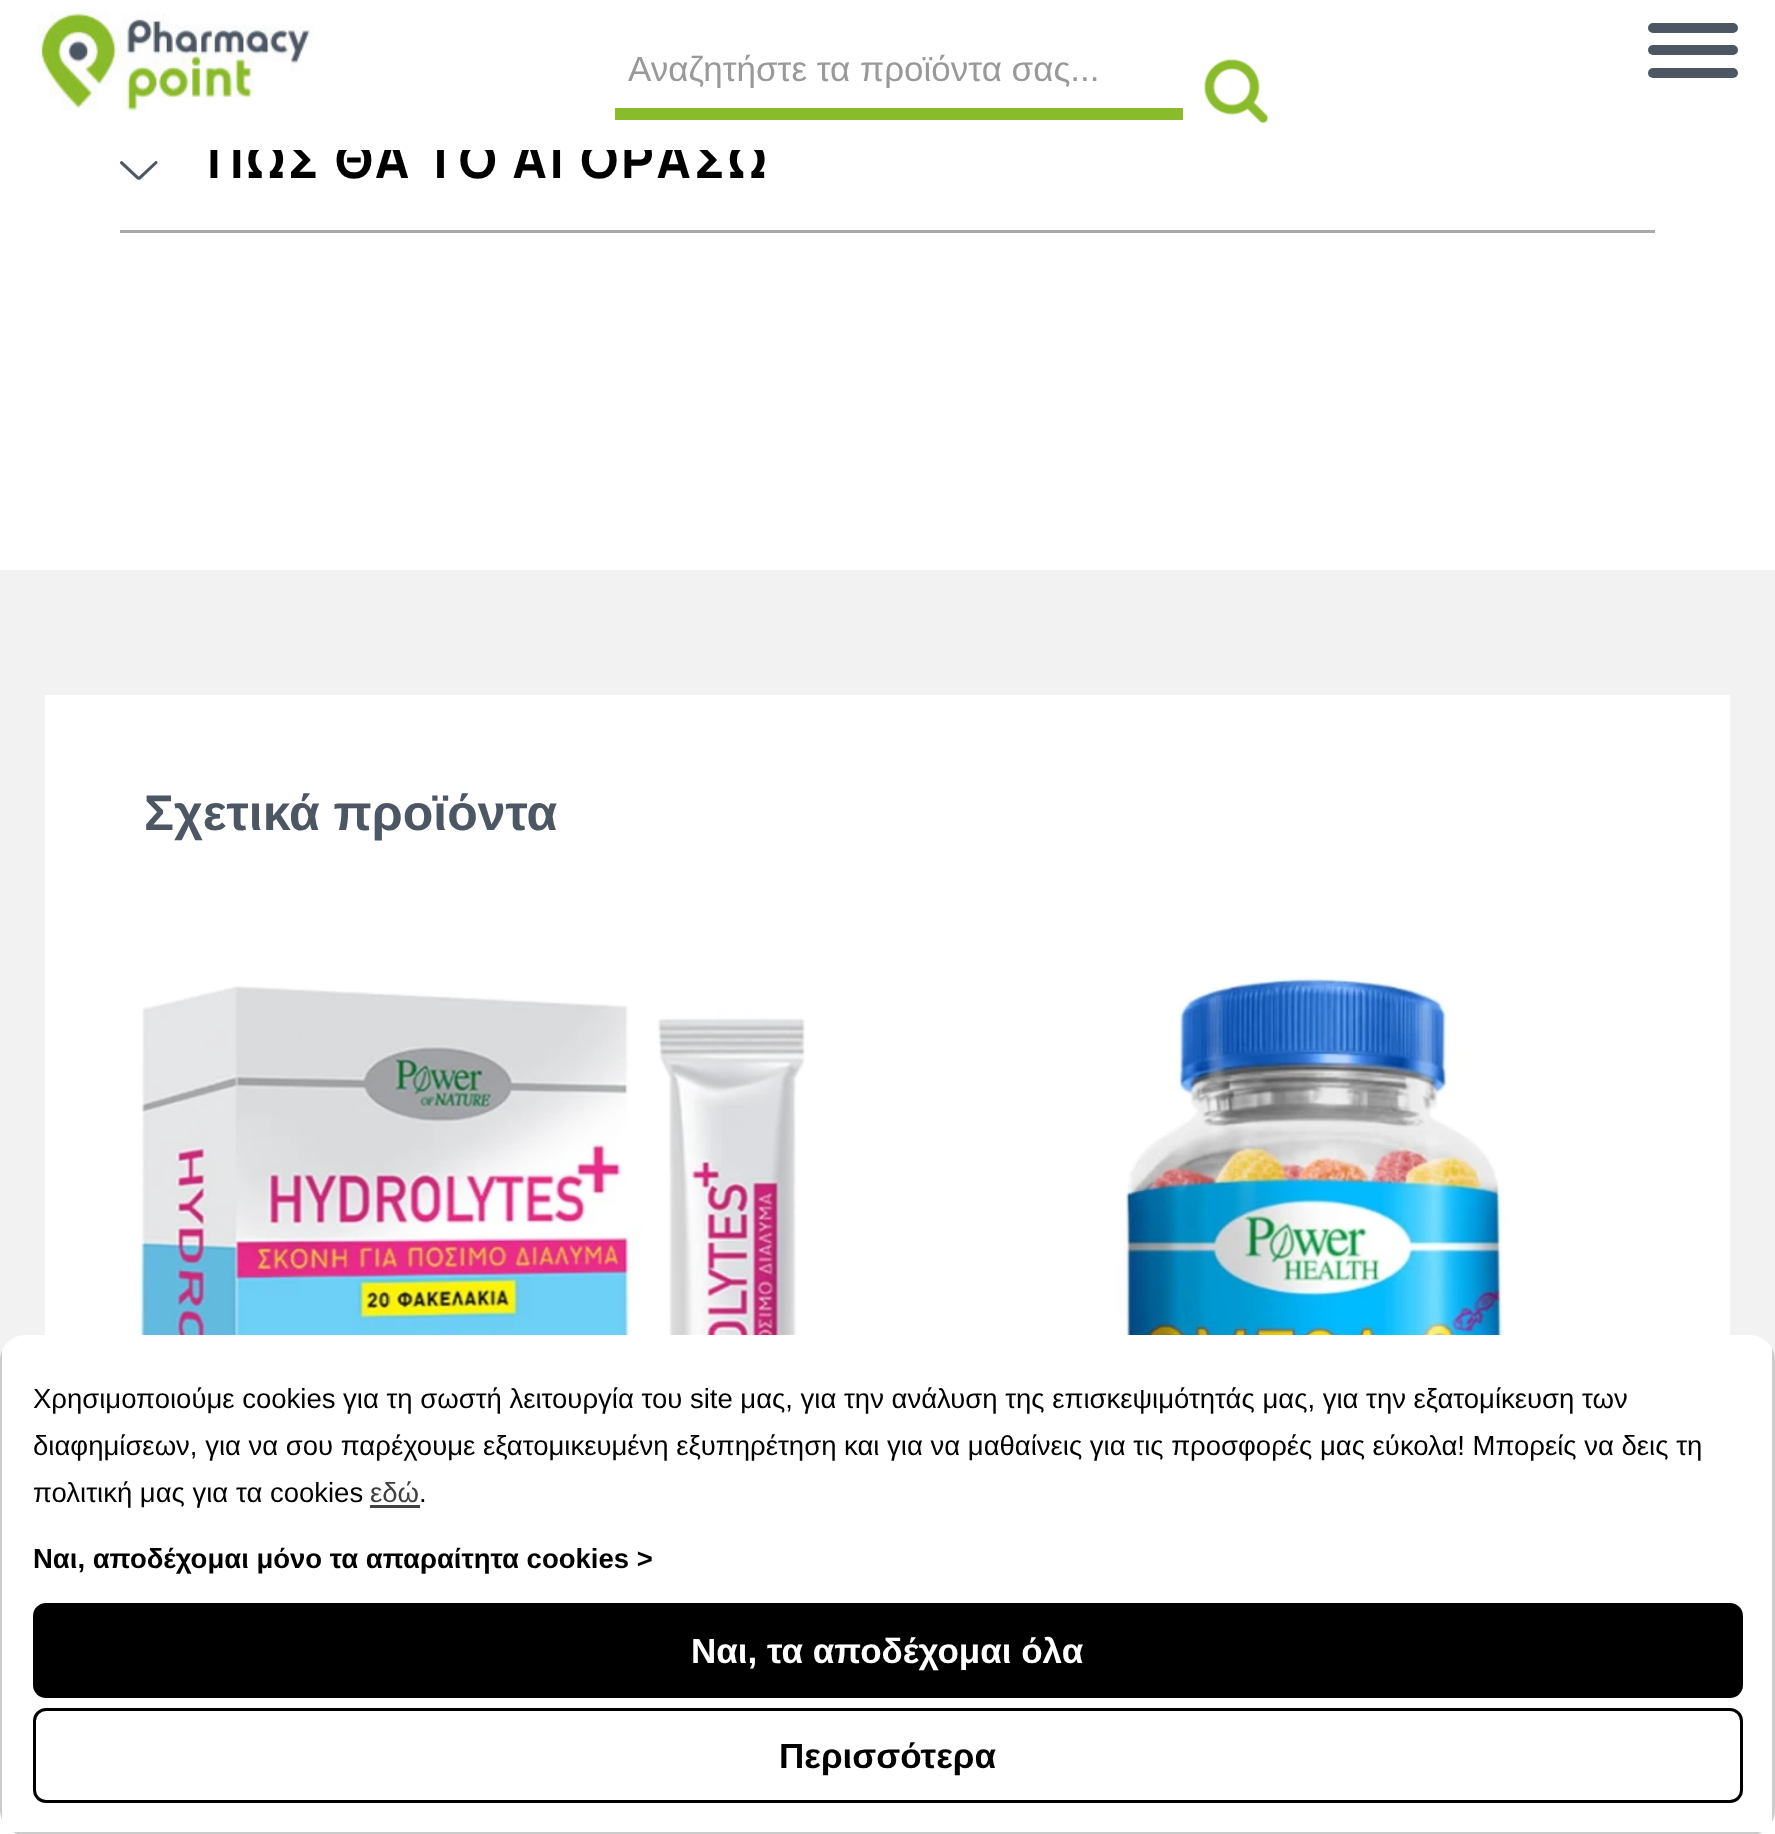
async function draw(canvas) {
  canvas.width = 1775;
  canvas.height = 1834;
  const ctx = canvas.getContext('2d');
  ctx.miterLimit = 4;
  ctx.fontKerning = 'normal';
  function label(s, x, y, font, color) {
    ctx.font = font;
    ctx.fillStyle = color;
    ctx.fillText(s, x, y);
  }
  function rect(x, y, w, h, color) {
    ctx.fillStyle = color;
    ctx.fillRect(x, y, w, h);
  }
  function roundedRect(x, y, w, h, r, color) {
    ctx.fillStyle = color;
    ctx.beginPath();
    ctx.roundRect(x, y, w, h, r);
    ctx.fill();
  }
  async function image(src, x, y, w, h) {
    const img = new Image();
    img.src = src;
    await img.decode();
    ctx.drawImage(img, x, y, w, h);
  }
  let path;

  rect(0, 0, 1775, 1834, '#fff');
  ctx.letterSpacing = '3px';
  label('ΠΩΣ ΘΑ ΤΟ ΑΓΟΡΑΣΩ', 207, 178, '800 50px Manrope', '#000');
  rect(210, 141, 553, 9, '#fff');
  await image('assets/img1.png', 37, 12, 276, 99);
  rect(615, 108, 568, 12, '#8abb2a');
  ctx.save();
  ctx.beginPath();
  ctx.rect(628, 48, 542, 40);
  ctx.clip();
  ctx.letterSpacing = '0px';
  label('Αναζητήστε τα προϊόντα σας...', 628, 81, '35px Liberation Sans', '#999');
  ctx.restore();
  await image('assets/img2.png', 1204, 59, 64, 64);
  roundedRect(1648, 23, 90, 10, 5, '#4d5764');
  roundedRect(1648, 45, 90, 10, 5, '#4d5764');
  roundedRect(1648, 68, 90, 10, 5, '#4d5764');
  rect(120, 230, 1535, 3, '#a9a9a9');
  await image('assets/img3.png', 120, 161, 38, 19);
  rect(0, 570, 1775, 790, '#f2f2f2');
  rect(45, 695, 1685, 640, '#fff');
  await image('assets/img4.png', 138, 986, 667, 349);
  await image('assets/img5.png', 1114, 977, 401, 358);
  ctx.letterSpacing = '0px';
  label('Σχετικά προϊόντα', 144, 830, 'bold 50px Liberation Sans', '#4d5764');
  roundedRect(0, 1335, 1775, 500, 25, '#fff');
  ctx.fillStyle = '#00000033';
  path = new Path2D('M0 1360V1810C0 1813 1 1817 2 1820V1350C1 1353 0 1357 0 1360ZM1772 1348V1822C1774 1819 1775 1814 1775 1810V1360C1775 1356 1774 1352 1772 1348ZM1750 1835C1754 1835 1759 1834 1762 1832H13C16 1834 21 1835 25 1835Z');
  ctx.fill(path, 'evenodd');
  label('Χρησιμοποιούμε cookies για τη σωστή λειτουργία του site μας, για την ανάλυση της επισκεψιμότητάς μας, για την εξατομίκευση των', 33, 1408, '27.5px Liberation Sans', '#000');
  label('διαφημίσεων, για να σου παρέχουμε εξατομικευμένη εξυπηρέτηση και για να μαθαίνεις για τις προσφορές μας εύκολα! Μπορείς να δεις τη', 33, 1455, '27.5px Liberation Sans', '#000');
  label('πολιτική μας για τα cookies', 33, 1502, '27.5px Liberation Sans', '#000');
  label('εδώ', 370, 1502, '27.5px Liberation Sans', '#404040');
  rect(370, 1505, 50, 3, '#404040');
  label('.', 419, 1502, '27.5px Liberation Sans', '#000');
  label('Ναι, αποδέχομαι μόνο τα απαραίτητα cookies >', 33, 1568, 'bold 27.5px Liberation Sans', '#000');
  roundedRect(33, 1603, 1710, 95, 13, '#000');
  label('Ναι, τα αποδέχομαι όλα', 691, 1663, 'bold 35px Liberation Sans', '#fff');
  ctx.beginPath();
  ctx.roundRect(34.5, 1709.5, 1707, 92, 11.5);
  ctx.strokeStyle = '#000';
  ctx.lineWidth = 3;
  ctx.stroke();
  label('Περισσότερα', 779, 1768, 'bold 35px Liberation Sans', '#000');
}

draw(document.querySelector('canvas'));
